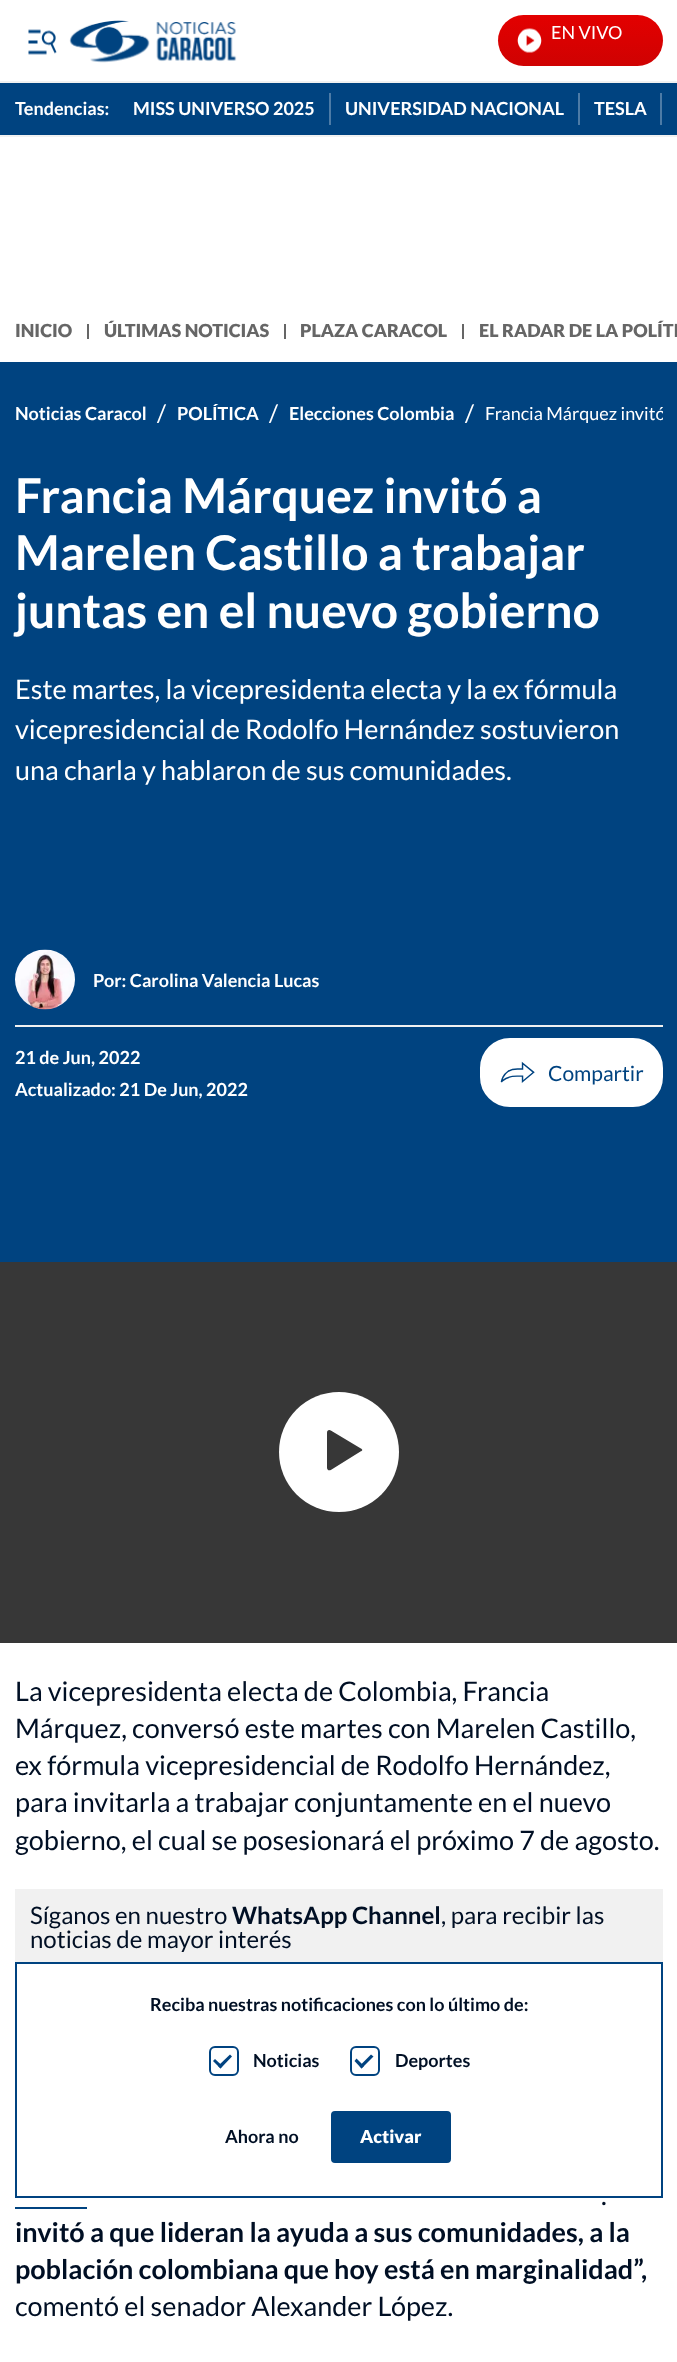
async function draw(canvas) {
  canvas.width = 677;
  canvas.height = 2362;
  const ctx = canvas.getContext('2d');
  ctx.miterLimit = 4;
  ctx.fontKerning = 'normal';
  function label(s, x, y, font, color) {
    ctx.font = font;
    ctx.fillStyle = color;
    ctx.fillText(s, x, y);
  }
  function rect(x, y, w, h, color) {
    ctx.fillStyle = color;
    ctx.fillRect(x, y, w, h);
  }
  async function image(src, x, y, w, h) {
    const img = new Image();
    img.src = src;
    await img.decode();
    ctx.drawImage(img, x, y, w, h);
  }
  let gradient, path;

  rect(0, 0, 677, 2362, '#fff');
  rect(0, 81, 677, 2, '#f1f1f1');
  await image('assets/img1.png', 28, 29, 29, 26);
  await image('assets/img2.png', 69, 20, 168, 43);
  gradient = ctx.createLinearGradient(581, 15, 581, 66);
  gradient.addColorStop(0, '#e30000');
  gradient.addColorStop(1, '#cf0202');
  ctx.fillStyle = gradient;
  ctx.beginPath();
  ctx.roundRect(498, 15, 165, 51, 25.5);
  ctx.fill();
  await image('assets/img3.png', 517, 28, 25, 25);
  label('EN VIVO', 551, 39, '18px Lato', '#fff');
  rect(0, 83, 677, 52, '#004380');
  rect(0, 135, 677, 2, '#f1f1f1');
  label('Tendencias:', 15, 115, 'bold 18px Lato', '#fff');
  label('MISS UNIVERSO 2025', 133, 115, 'bold 18px Lato', '#fff');
  rect(329, 93, 2, 32, '#4d7ba6');
  label('UNIVERSIDAD NACIONAL', 345, 115, 'bold 18px Lato', '#fff');
  rect(578, 93, 2, 32, '#4d7ba6');
  label('TESLA', 594, 115, 'bold 18px Lato', '#fff');
  rect(660, 93, 2, 32, '#4d7ba6');
  rect(87, 324, 2, 15, '#666');
  label('INICIO', 15, 337, '900 18px Lato', '#666');
  rect(284, 324, 2, 15, '#666');
  label('ÚLTIMAS NOTICIAS', 104, 337, '900 18px Lato', '#666');
  rect(462, 324, 2, 15, '#666');
  label('PLAZA CARACOL', 300, 337, '900 18px Lato', '#666');
  label('EL RADAR DE LA POLÍTI', 479, 337, '900 18px Lato', '#666');
  rect(0, 362, 677, 900, '#004380');
  label('Noticias Caracol', 15, 420, 'bold 18px Lato', '#fff');
  label('/', 157, 422, '24px Lato', '#fff');
  label('POLÍTICA', 177, 420, 'bold 18px Lato', '#fff');
  label('/', 269, 422, '24px Lato', '#fff');
  label('Elecciones Colombia', 289, 420, 'bold 18px Lato', '#fff');
  label('/', 465, 422, '24px Lato', '#fff');
  ctx.save();
  ctx.beginPath();
  ctx.rect(15, 392, 648, 45);
  ctx.clip();
  label('Francia Márquez invitó', 485, 420, '18px Lato', '#fff');
  ctx.restore();
  label('Francia Márquez invitó a', 15, 513, 'bold 48px Lato', '#fff');
  label('Marelen Castillo a trabajar', 15, 570, 'bold 48px Lato', '#fff');
  label('juntas en el nuevo gobierno', 15, 628, 'bold 48px Lato', '#fff');
  label('Este martes, la vicepresidenta electa y la ex fórmula', 15, 699, '27px Lato', '#fff');
  label('vicepresidencial de Rodolfo Hernández sostuvieron', 15, 739, '27px Lato', '#fff');
  label('una charla y hablaron de sus comunidades.', 15, 780, '27px Lato', '#fff');
  await image('assets/img4.png', 15, 949, 60, 61);
  label('Por: Carolina Valencia Lucas', 93, 987, 'bold 18px Lato', '#fff');
  rect(15, 1025, 648, 2, '#f1f1f1');
  label('21 de Jun, 2022', 15, 1064, 'bold 18px Lato', '#fff');
  label('Actualizado: 21 De Jun, 2022', 15, 1096, 'bold 18px Lato', '#fff');
  ctx.beginPath();
  ctx.roundRect(481, 1039, 181, 67, 29);
  ctx.fill();
  ctx.strokeStyle = '#fff';
  ctx.lineWidth = 2;
  ctx.stroke();
  await image('assets/img5.png', 500, 1061, 35, 22);
  label('Compartir', 548, 1081, '21px Lato', '#004380');
  rect(0, 1262, 677, 381, '#373737');
  ctx.fillStyle = '#fff';
  ctx.beginPath();
  ctx.arc(339, 1452, 60, 0, 2 * Math.PI);
  ctx.fill();
  await image('assets/img6.png', 327, 1430, 36, 41);
  label('La vicepresidenta electa de Colombia, Francia', 15, 1701, '27px Lato', '#000f24');
  label('Márquez, conversó este martes con Marelen Castillo,', 15, 1738, '27px Lato', '#000f24');
  label('ex fórmula vicepresidencial de Rodolfo Hernández,', 15, 1775, '27px Lato', '#000f24');
  label('para invitarla a trabajar conjuntamente en el nuevo', 15, 1812, '27px Lato', '#000f24');
  label('gobierno, el cual se posesionará el próximo 7 de agosto.', 15, 1850, '27px Lato', '#000f24');
  rect(15, 1889, 648, 73, '#f1f1f1');
  label('Síganos en nuestro', 30, 1924, '24px Lato', '#000f24');
  label('WhatsApp Channel', 232, 1924, 'bold 24px Lato', '#000f24');
  label(', para recibir las', 441, 1924, '24px Lato', '#000f24');
  label('noticias de mayor interés', 30, 1948, '24px Lato', '#000f24');
  label('.', 601, 2205, '27px Lato', '#000f24');
  rect(15, 2207, 72, 2, '#004380');
  label('invitó a que lideran la ayuda a sus comunidades, a la', 15, 2242, 'bold 27px Lato', '#000f24');
  label('población colombiana que hoy está en marginalidad”,', 15, 2279, 'bold 27px Lato', '#000f24');
  label('comentó el senador Alexander López.', 15, 2316, '27px Lato', '#000f24');
  ctx.strokeStyle = '#004380';
  ctx.strokeRect(16, 1963, 646, 234);
  label('Reciba nuestras notificaciones con lo último de:', 150, 2011, 'bold 18px Lato', '#000f24');
  ctx.beginPath();
  ctx.roundRect(210, 2047, 28, 28, 5);
  ctx.stroke();
  ctx.fillStyle = '#004380';
  path = new Path2D('M230 2054.5L232 2056.5L220.5 2068.5L218 2066Z');
  ctx.fill(path);
  path = new Path2D('M215 2059L222.5 2066L220.5 2068.5L213 2061Z');
  ctx.fill(path);
  label('Noticias', 253, 2067, 'bold 18px Lato', '#000f24');
  ctx.beginPath();
  ctx.roundRect(351, 2047, 28, 28, 5);
  ctx.stroke();
  ctx.fillStyle = '#004380';
  path = new Path2D('M371 2054.5L373.5 2056.5L361.5 2068.5L359.5 2066Z');
  ctx.fill(path);
  path = new Path2D('M356.5 2058.5L364 2066L361.5 2068.5L354.5 2061Z');
  ctx.fill(path);
  label('Deportes', 395, 2067, 'bold 18px Lato', '#000f24');
  label('Ahora no', 225, 2143, 'bold 18px Lato', '#000f24');
  ctx.fillStyle = '#004380';
  ctx.beginPath();
  ctx.roundRect(330, 2110, 122, 54, 5);
  ctx.fill();
  ctx.strokeStyle = '#fff';
  ctx.stroke();
  label('Activar', 360, 2143, '900 18px Lato', '#fff');
}

draw(document.querySelector('canvas'));
